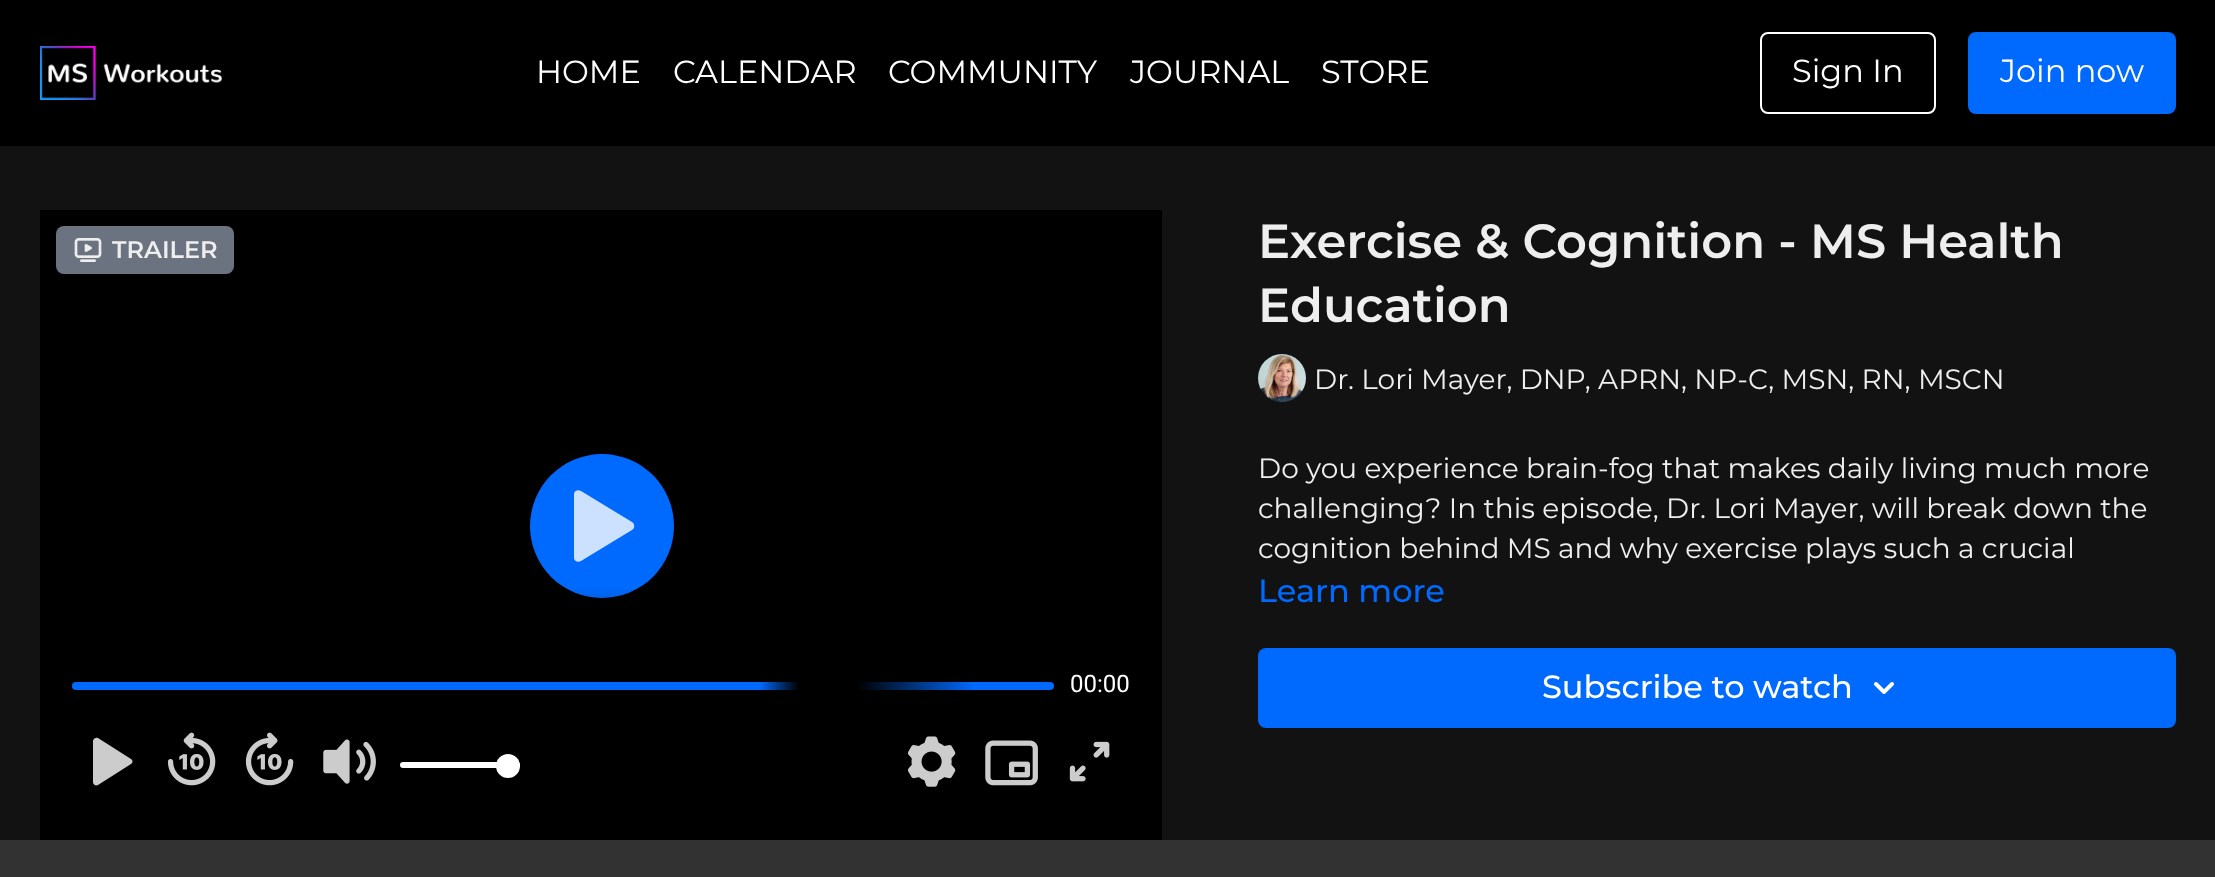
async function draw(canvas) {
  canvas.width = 2215;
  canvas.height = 877;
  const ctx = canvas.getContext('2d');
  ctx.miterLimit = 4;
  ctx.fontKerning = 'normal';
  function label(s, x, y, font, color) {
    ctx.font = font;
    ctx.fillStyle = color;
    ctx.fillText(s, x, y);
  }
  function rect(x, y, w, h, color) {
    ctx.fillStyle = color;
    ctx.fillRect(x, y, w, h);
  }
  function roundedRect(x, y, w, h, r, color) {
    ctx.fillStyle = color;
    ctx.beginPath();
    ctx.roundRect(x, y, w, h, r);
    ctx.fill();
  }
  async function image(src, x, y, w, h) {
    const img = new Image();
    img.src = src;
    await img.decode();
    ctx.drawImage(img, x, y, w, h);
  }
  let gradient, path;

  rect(0, 0, 2215, 877, '#121212');
  rect(0, 0, 2215, 146, '#000');
  await image('assets/img1.png', 40, 46, 182, 54);
  label('HOME', 536, 83, '32px Montserrat', '#fff');
  label('CALENDAR', 673, 83, '32px Montserrat', '#fff');
  label('COMMUNITY', 888, 83, '32px Montserrat', '#fff');
  label('JOURNAL', 1130, 83, '32px Montserrat', '#fff');
  label('STORE', 1321, 83, '32px Montserrat', '#fff');
  ctx.beginPath();
  ctx.roundRect(1761, 33, 174, 80, 7);
  ctx.strokeStyle = '#fff';
  ctx.lineWidth = 2;
  ctx.stroke();
  label('Sign In', 1792, 82, '32px Montserrat', '#fff');
  ctx.fillStyle = '#006aff';
  ctx.beginPath();
  ctx.roundRect(1969, 33, 206, 80, 7);
  ctx.fill();
  ctx.strokeStyle = '#006aff';
  ctx.stroke();
  label('Join now', 2000, 82, '32px Montserrat', '#fff');
  rect(40, 210, 1122, 630, '#000');
  roundedRect(56, 226, 178, 48, 8, '#6b7280');
  await image('assets/img2.png', 74, 238, 28, 24);
  label('TRAILER', 112, 258, '600 24px Montserrat', '#eee');
  ctx.fillStyle = '#006aff';
  ctx.beginPath();
  ctx.arc(602, 526, 72, 0, 2 * Math.PI);
  ctx.fill();
  ctx.fillStyle = '#cce1ff';
  path = new Path2D('M581 491C578 489 574 491 574 494V558C574 561 578 563 581 561L632 530C635 528 635 524 632 522Z');
  ctx.fill(path);
  gradient = ctx.createLinearGradient(601, 840, 601, 574);
  gradient.addColorStop(0.54, '#00000099');
  gradient.addColorStop(0.96, '#00000000');
  ctx.fillStyle = gradient;
  ctx.fillRect(568, 589, 68, 9);
  gradient = ctx.createLinearGradient(72, 690, 2036, 690);
  gradient.addColorStop(0.35, '#006aff');
  gradient.addColorStop(0.37, '#000');
  gradient.addColorStop(0.4, '#000');
  gradient.addColorStop(0.46, '#006aff');
  gradient.addColorStop(1, '#006aff');
  ctx.fillStyle = gradient;
  ctx.beginPath();
  ctx.roundRect(72, 682, 982, 8, 4);
  ctx.fill();
  label('00:00', 1070, 692, '24px Roboto', '#fff');
  ctx.fillStyle = '#ccc';
  path = new Path2D('M98 738C96 737 93 739 93 741V782C93 785 96 786 98 785L131 764C133 763 133 760 131 759Z');
  ctx.fill(path);
  await image('assets/img3.png', 167, 732, 49, 54);
  await image('assets/img4.png', 245, 732, 49, 54);
  await image('assets/img5.png', 323, 739, 53, 45);
  roundedRect(400, 762, 120, 6, 3, '#fff');
  ctx.beginPath();
  ctx.arc(508, 766, 12, 0, 2 * Math.PI);
  ctx.fill();
  await image('assets/img6.png', 908, 736, 48, 51);
  await image('assets/img7.png', 985, 740, 53, 46);
  await image('assets/img8.png', 1069, 741, 41, 41);
  label('Exercise & Cognition - MS Health', 1258, 258, '600 48px Montserrat', '#eee');
  label('Education', 1258, 322, '600 48px Montserrat', '#eee');
  await image('assets/img9.png', 1258, 354, 48, 48);
  label('Dr. Lori Mayer, DNP, APRN, NP-C, MSN, RN, MSCN', 1314, 389, '28px Montserrat', '#eee');
  label('Do you experience brain-fog that makes daily living much more', 1258, 478, '28px Montserrat', '#eee');
  label('challenging? In this episode, Dr. Lori Mayer, will break down the', 1258, 518, '28px Montserrat', '#eee');
  label('cognition behind MS and why exercise plays such a crucial', 1258, 558, '28px Montserrat', '#eee');
  label('Learn more', 1258, 602, '500 32px Montserrat', '#006aff');
  roundedRect(1258, 648, 918, 80, 8, '#006aff');
  label('Subscribe to watch', 1542, 698, '500 32px Montserrat', '#fff');
  await image('assets/img10.png', 1874, 682, 20, 12);
  rect(0, 840, 2215, 37, '#323232');
}

draw(document.querySelector('canvas'));
